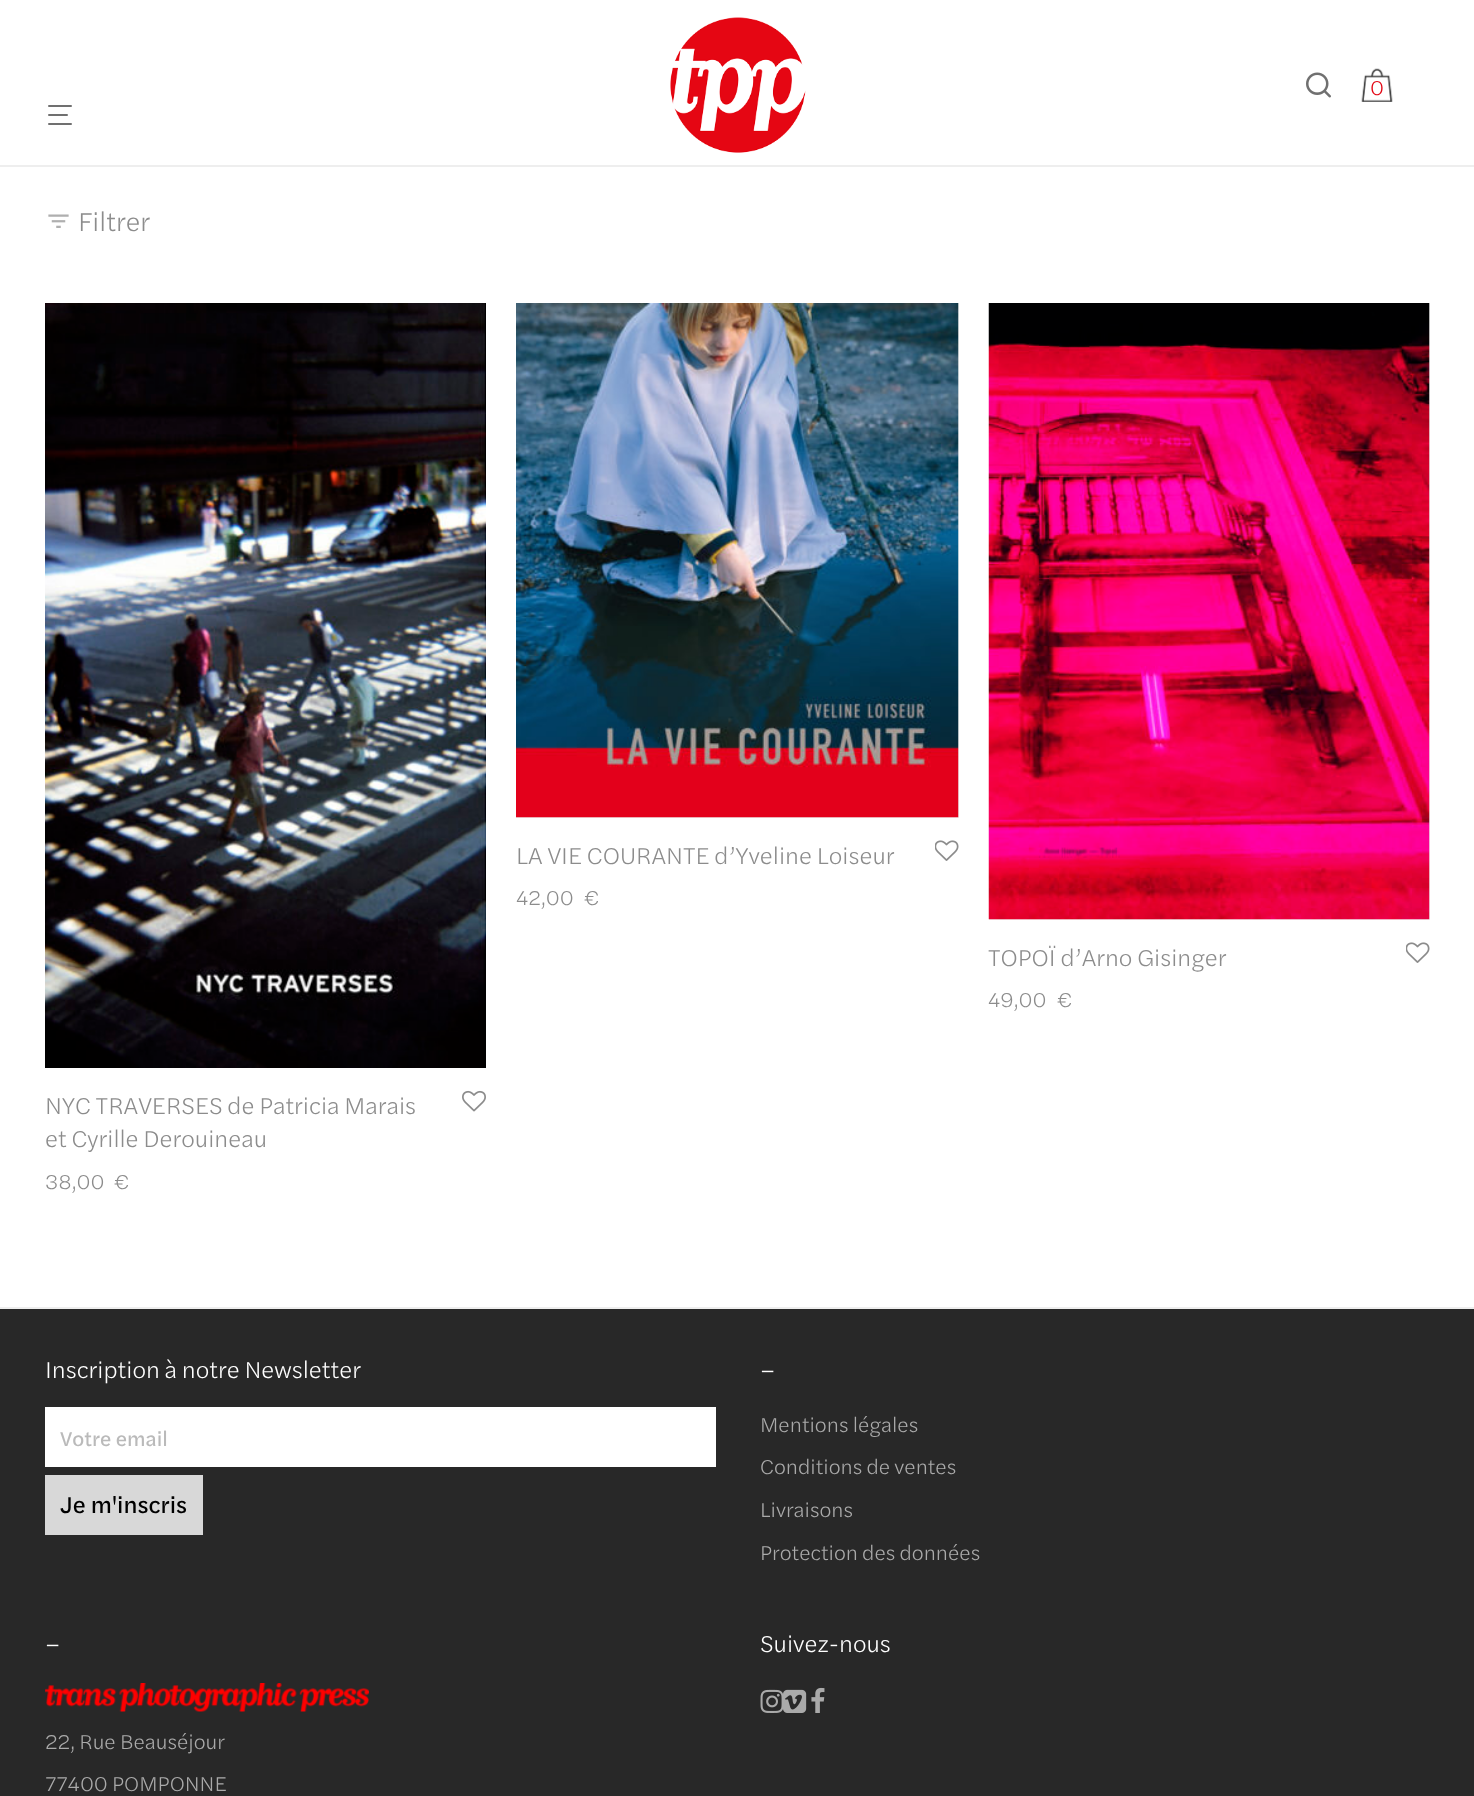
async function draw(canvas) {
  canvas.width = 1474;
  canvas.height = 1796;
  const ctx = canvas.getContext('2d');
  ctx.miterLimit = 4;
  ctx.fontKerning = 'normal';
  function label(s, x, y, font, color) {
    ctx.font = font;
    ctx.fillStyle = color;
    ctx.fillText(s, x, y);
  }
  function rect(x, y, w, h, color) {
    ctx.fillStyle = color;
    ctx.fillRect(x, y, w, h);
  }
  function roundedRect(x, y, w, h, r, color) {
    ctx.fillStyle = color;
    ctx.beginPath();
    ctx.roundRect(x, y, w, h, r);
    ctx.fill();
  }
  async function image(src, x, y, w, h) {
    const img = new Image();
    img.src = src;
    await img.decode();
    ctx.drawImage(img, x, y, w, h);
  }

  rect(0, 0, 1474, 1796, '#fff');
  rect(0, 165, 1474, 2, '#eee');
  roundedRect(48, 105, 24, 2, 1, '#707070');
  roundedRect(48, 114, 20, 2, 1, '#707070');
  roundedRect(48, 123, 24, 2, 1, '#707070');
  await image('assets/img1.png', 670, 17, 136, 136);
  await image('assets/img2.png', 1306, 72, 25, 26);
  await image('assets/img3.png', 1361, 68, 32, 34);
  label('0', 1370, 95, '300 21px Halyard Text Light', '#e30613');
  await image('assets/img4.png', 48, 214, 21, 14);
  label('Filtrer', 78, 231, '300 27px Halyard Text Light', '#8c8c8c');
  rect(516, 303, 443, 515, '#eee');
  await image('assets/img5.png', 516, 303, 443, 515);
  label('LA VIE COURANTE d’Yveline Loiseur', 516, 864, '300 24px Halyard Text Light', '#8c8c8c');
  label('42,00', 516, 905, '300 21px Halyard Text Light', '#8c8c8c');
  label('€', 584, 905, '300 21px Halyard Text Light', '#8c8c8c');
  await image('assets/img6.png', 935, 840, 24, 21);
  rect(989, 303, 441, 617, '#eee');
  await image('assets/img7.png', 988, 303, 442, 617);
  label('TOPOÏ d’Arno Gisinger', 988, 966, '300 24px Halyard Text Light', '#8c8c8c');
  label('49,00', 988, 1007, '300 21px Halyard Text Light', '#8c8c8c');
  label('€', 1057, 1007, '300 21px Halyard Text Light', '#8c8c8c');
  await image('assets/img6.png', 1406, 942, 24, 21);
  await image('assets/img8.png', 45, 303, 441, 765);
  label('NYC TRAVERSES de Patricia Marais', 45, 1114, '300 24px Halyard Text Light', '#8c8c8c');
  label('et Cyrille Derouineau', 45, 1147, '300 24px Halyard Text Light', '#8c8c8c');
  label('38,00', 45, 1189, '300 21px Halyard Text Light', '#8c8c8c');
  label('€', 114, 1189, '300 21px Halyard Text Light', '#8c8c8c');
  await image('assets/img9.png', 462, 1090, 24, 22);
  rect(0, 1309, 1474, 487, '#282828');
  rect(0, 1307, 1474, 2, '#eee');
  label('Inscription à notre Newsletter', 45, 1378, '300 24px Halyard Text Light', '#fff');
  rect(45, 1407, 671, 60, '#fff');
  label('Votre email', 60, 1446, '21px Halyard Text', '#bababa');
  rect(45, 1475, 158, 60, '#d8d8d8');
  label('Je m\'inscris', 60, 1513, '24px Halyard Text', '#000');
  label('–', 760, 1378, '300 24px Halyard Text Light', '#fff');
  label('Mentions légales', 760, 1432, '300 21px Halyard Text Light', '#aaa');
  label('Conditions de ventes', 760, 1474, '300 21px Halyard Text Light', '#aaa');
  label('Livraisons', 760, 1517, '300 21px Halyard Text Light', '#aaa');
  label('Protection des données', 760, 1560, '300 21px Halyard Text Light', '#aaa');
  label('–', 45, 1652, '300 24px Halyard Text Light', '#fff');
  await image('assets/img10.png', 45, 1683, 324, 29);
  label('22, Rue Beauséjour', 45, 1749, '300 21px Halyard Text Light', '#aaa');
  label('77400 POMPONNE', 45, 1791, '300 21px Halyard Text Light', '#aaa');
  label('Suivez-nous', 760, 1652, '300 24px Halyard Text Light', '#fff');
  await image('assets/img11.png', 760, 1689, 23, 24);
  await image('assets/img12.png', 783, 1689, 24, 24);
  await image('assets/img13.png', 811, 1687, 14, 26);
}

draw(document.querySelector('canvas'));
